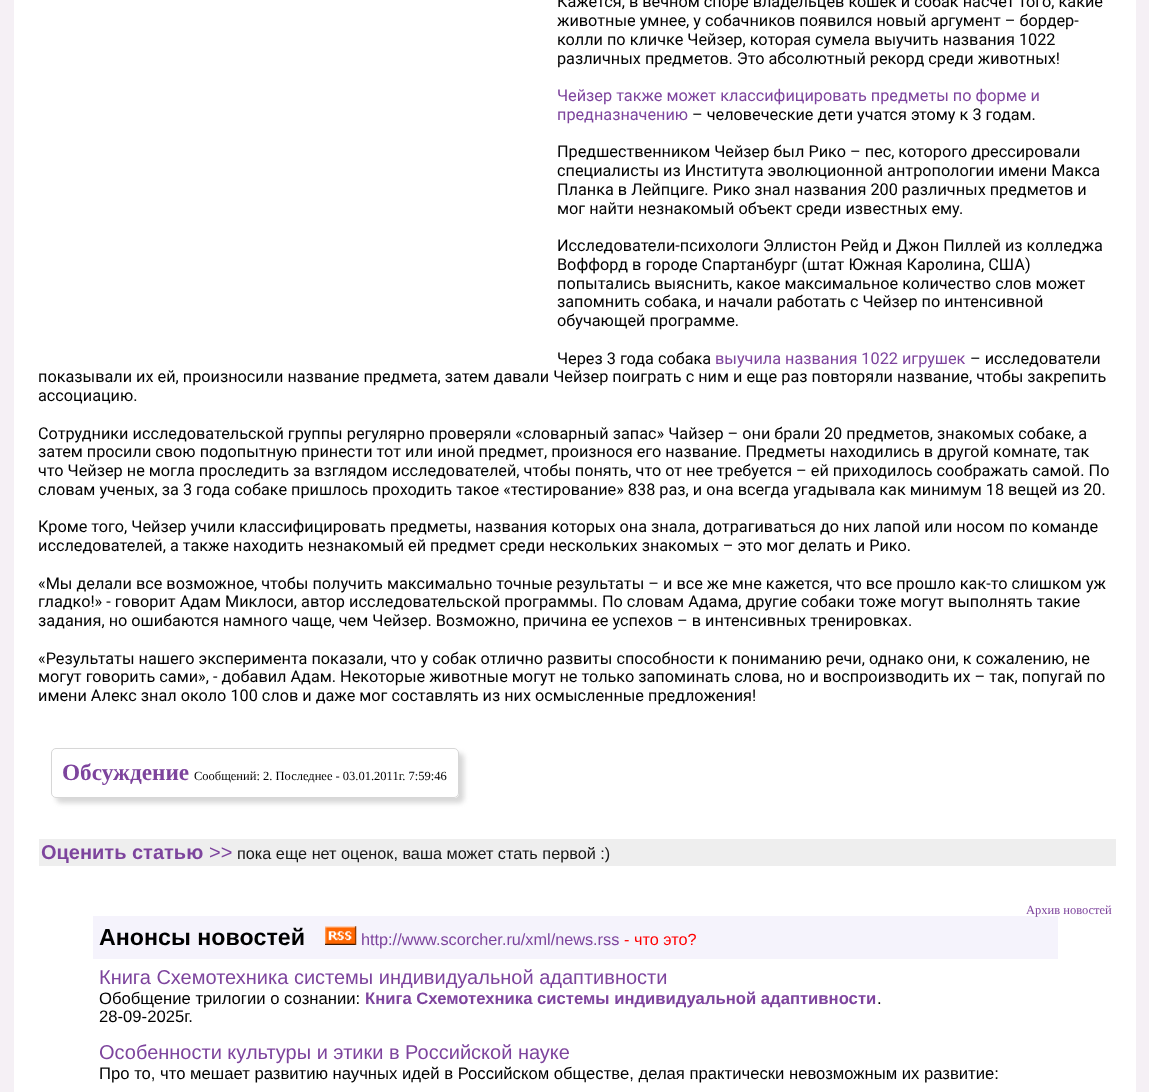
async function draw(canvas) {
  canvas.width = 1149;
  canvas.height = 1092;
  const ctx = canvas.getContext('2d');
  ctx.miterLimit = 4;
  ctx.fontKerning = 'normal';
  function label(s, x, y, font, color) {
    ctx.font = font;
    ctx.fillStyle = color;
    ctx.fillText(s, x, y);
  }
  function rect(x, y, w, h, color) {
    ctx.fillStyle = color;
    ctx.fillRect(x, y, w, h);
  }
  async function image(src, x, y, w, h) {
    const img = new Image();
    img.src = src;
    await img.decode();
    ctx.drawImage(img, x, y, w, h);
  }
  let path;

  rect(0, 0, 1149, 1092, '#f5f0f5');
  rect(14, 0, 1122, 1092, '#fff');
  label('Кажется, в вечном споре владельцев кошек и собак насчет того, какие', 557, 7, '16.25px Roboto', '#000');
  label('животные умнее, у собачников появился новый аргумент – бордер-', 557, 26, '16.25px Roboto', '#000');
  label('колли по кличке Чейзер, которая сумела выучить названия 1022', 557, 45, '16.25px Roboto', '#000');
  label('различных предметов. Это абсолютный рекорд среди животных!', 557, 64, '16.25px Roboto', '#000');
  label('Чейзер также может классифицировать предметы по форме и', 557, 101, '16.25px Roboto', '#7d449d');
  label('предназначению', 557, 120, '16.25px Roboto', '#7d449d');
  label('– человеческие дети учатся этому к 3 годам.', 692, 120, '16.25px Roboto', '#000');
  label('Предшественником Чейзер был Рико – пес, которого дрессировали', 557, 157, '16.25px Roboto', '#000');
  label('специалисты из Института эволюционной антропологии имени Макса', 557, 176, '16.25px Roboto', '#000');
  label('Планка в Лейпциге. Рико знал названия 200 различных предметов и', 557, 195, '16.25px Roboto', '#000');
  label('мог найти незнакомый объект среди известных ему.', 557, 214, '16.25px Roboto', '#000');
  label('Исследователи-психологи Эллистон Рейд и Джон Пиллей из колледжа', 557, 251, '16.25px Roboto', '#000');
  label('Воффорд в городе Спартанбург (штат Южная Каролина, США)', 557, 270, '16.25px Roboto', '#000');
  label('попытались выяснить, какое максимальное количество слов может', 557, 289, '16.25px Roboto', '#000');
  label('запомнить собака, и начали работать с Чейзер по интенсивной', 557, 307, '16.25px Roboto', '#000');
  label('обучающей программе.', 557, 326, '16.25px Roboto', '#000');
  label('Через 3 года собака', 557, 364, '16.25px Roboto', '#000');
  label('выучила названия 1022 игрушек', 715, 364, '16.25px Roboto', '#7d449d');
  label('– исследователи', 970, 364, '16.25px Roboto', '#000');
  label('показывали их ей, произносили название предмета, затем давали Чейзер поиграть с ним и еще раз повторяли название, чтобы закрепить', 38, 382, '16.25px Roboto', '#000');
  label('ассоциацию.', 38, 401, '16.25px Roboto', '#000');
  label('Сотрудники исследовательской группы регулярно проверяли «словарный запас» Чайзер – они брали 20 предметов, знакомых собаке, а', 38, 439, '16.25px Roboto', '#000');
  label('затем просили свою подопытную принести тот или иной предмет, произнося его название. Предметы находились в другой комнате, так', 38, 457, '16.25px Roboto', '#000');
  label('что Чейзер не могла проследить за взглядом исследователей, чтобы понять, что от нее требуется – ей приходилось соображать самой. По', 38, 476, '16.25px Roboto', '#000');
  label('словам ученых, за 3 года собаке пришлось проходить такое «тестирование» 838 раз, и она всегда угадывала как минимум 18 вещей из 20.', 38, 495, '16.25px Roboto', '#000');
  label('Кроме того, Чейзер учили классифицировать предметы, названия которых она знала, дотрагиваться до них лапой или носом по команде', 38, 532, '16.25px Roboto', '#000');
  label('исследователей, а также находить незнакомый ей предмет среди нескольких знакомых – это мог делать и Рико.', 38, 551, '16.25px Roboto', '#000');
  label('«Мы делали все возможное, чтобы получить максимально точные результаты – и все же мне кажется, что все прошло как-то слишком уж', 38, 589, '16.25px Roboto', '#000');
  label('гладко!» - говорит Адам Миклоси, автор исследовательской программы. По словам Адама, другие собаки тоже могут выполнять такие', 38, 607, '16.25px Roboto', '#000');
  label('задания, но ошибаются намного чаще, чем Чейзер. Возможно, причина ее успехов – в интенсивных тренировках.', 38, 626, '16.25px Roboto', '#000');
  label('«Результаты нашего эксперимента показали, что у собак отлично развиты способности к пониманию речи, однако они, к сожалению, не', 38, 664, '16.25px Roboto', '#000');
  label('могут говорить сами», - добавил Адам. Некоторые животные могут не только запоминать слова, но и воспроизводить их – так, попугай по', 38, 682, '16.25px Roboto', '#000');
  label('имени Алекс знал около 100 слов и даже мог составлять из них осмысленные предложения!', 38, 701, '16.25px Roboto', '#000');
  ctx.save();
  path = new Path2D('M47 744H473V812H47ZM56 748H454C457 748 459 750 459 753V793C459 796 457 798 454 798H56C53 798 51 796 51 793V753C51 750 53 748 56 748Z');
  ctx.clip(path, 'evenodd');
  ctx.fillStyle = '#7a7a7a4d';
  ctx.filter = 'blur(2.5px)';
  ctx.beginPath();
  ctx.roundRect(56, 753, 408, 50, 5);
  ctx.fill();
  ctx.filter = 'none';
  ctx.restore();
  ctx.beginPath();
  ctx.roundRect(51.5, 748.5, 407, 49, 4.5);
  ctx.strokeStyle = '#d7d7d7';
  ctx.stroke();
  label('Обсуждение', 62, 780, 'bold 23.25px Liberation Serif', '#7d449d');
  label('Сообщений: 2. Последнее - 03.01.2011г. 7:59:46', 194, 780, '12.5px Liberation Serif', '#000');
  rect(39, 839, 1077, 27, '#eee');
  label('Оценить статью', 41, 859, 'bold 20px Liberation Sans', '#7d449d');
  label('>>', 209, 859, '20px Liberation Sans', '#7d449d');
  label('пока еще нет оценок, ваша может стать первой :)', 237, 859, '16.25px Liberation Sans', '#141414');
  rect(93, 916, 965, 43, '#f5f3fc');
  label('Архив новостей', 1026, 914, '12.5px Liberation Serif', '#7d449d');
  label('Анонсы новостей', 99, 945, 'bold 23.25px Liberation Sans', '#000');
  await image('assets/img1.png', 325, 926, 32, 19);
  label('http://www.scorcher.ru/xml/news.rss', 361, 945, '16.25px Liberation Sans', '#7d449d');
  label('- что это?', 624, 945, '16.25px Liberation Sans', '#f00');
  label('Книга Схемотехника системы индивидуальной адаптивности', 99, 984, '20px Liberation Sans', '#7d449d');
  label('Обобщение трилогии о сознании:', 99, 1004, '16.67px Liberation Sans', '#000');
  label('Книга Схемотехника системы индивидуальной адаптивности', 365, 1004, 'bold 16.67px Liberation Sans', '#7d449d');
  label('.', 877, 1004, '16.67px Liberation Sans', '#000');
  label('28-09-2025г.', 99, 1022, '16.67px Liberation Sans', '#000');
  label('Особенности культуры и этики в Российской науке', 99, 1059, '20px Liberation Sans', '#7d449d');
  label('Про то, что мешает развитию научных идей в Российском обществе, делая практически невозможным их развитие:', 99, 1079, '16.67px Liberation Sans', '#000');
}

draw(document.querySelector('canvas'));
